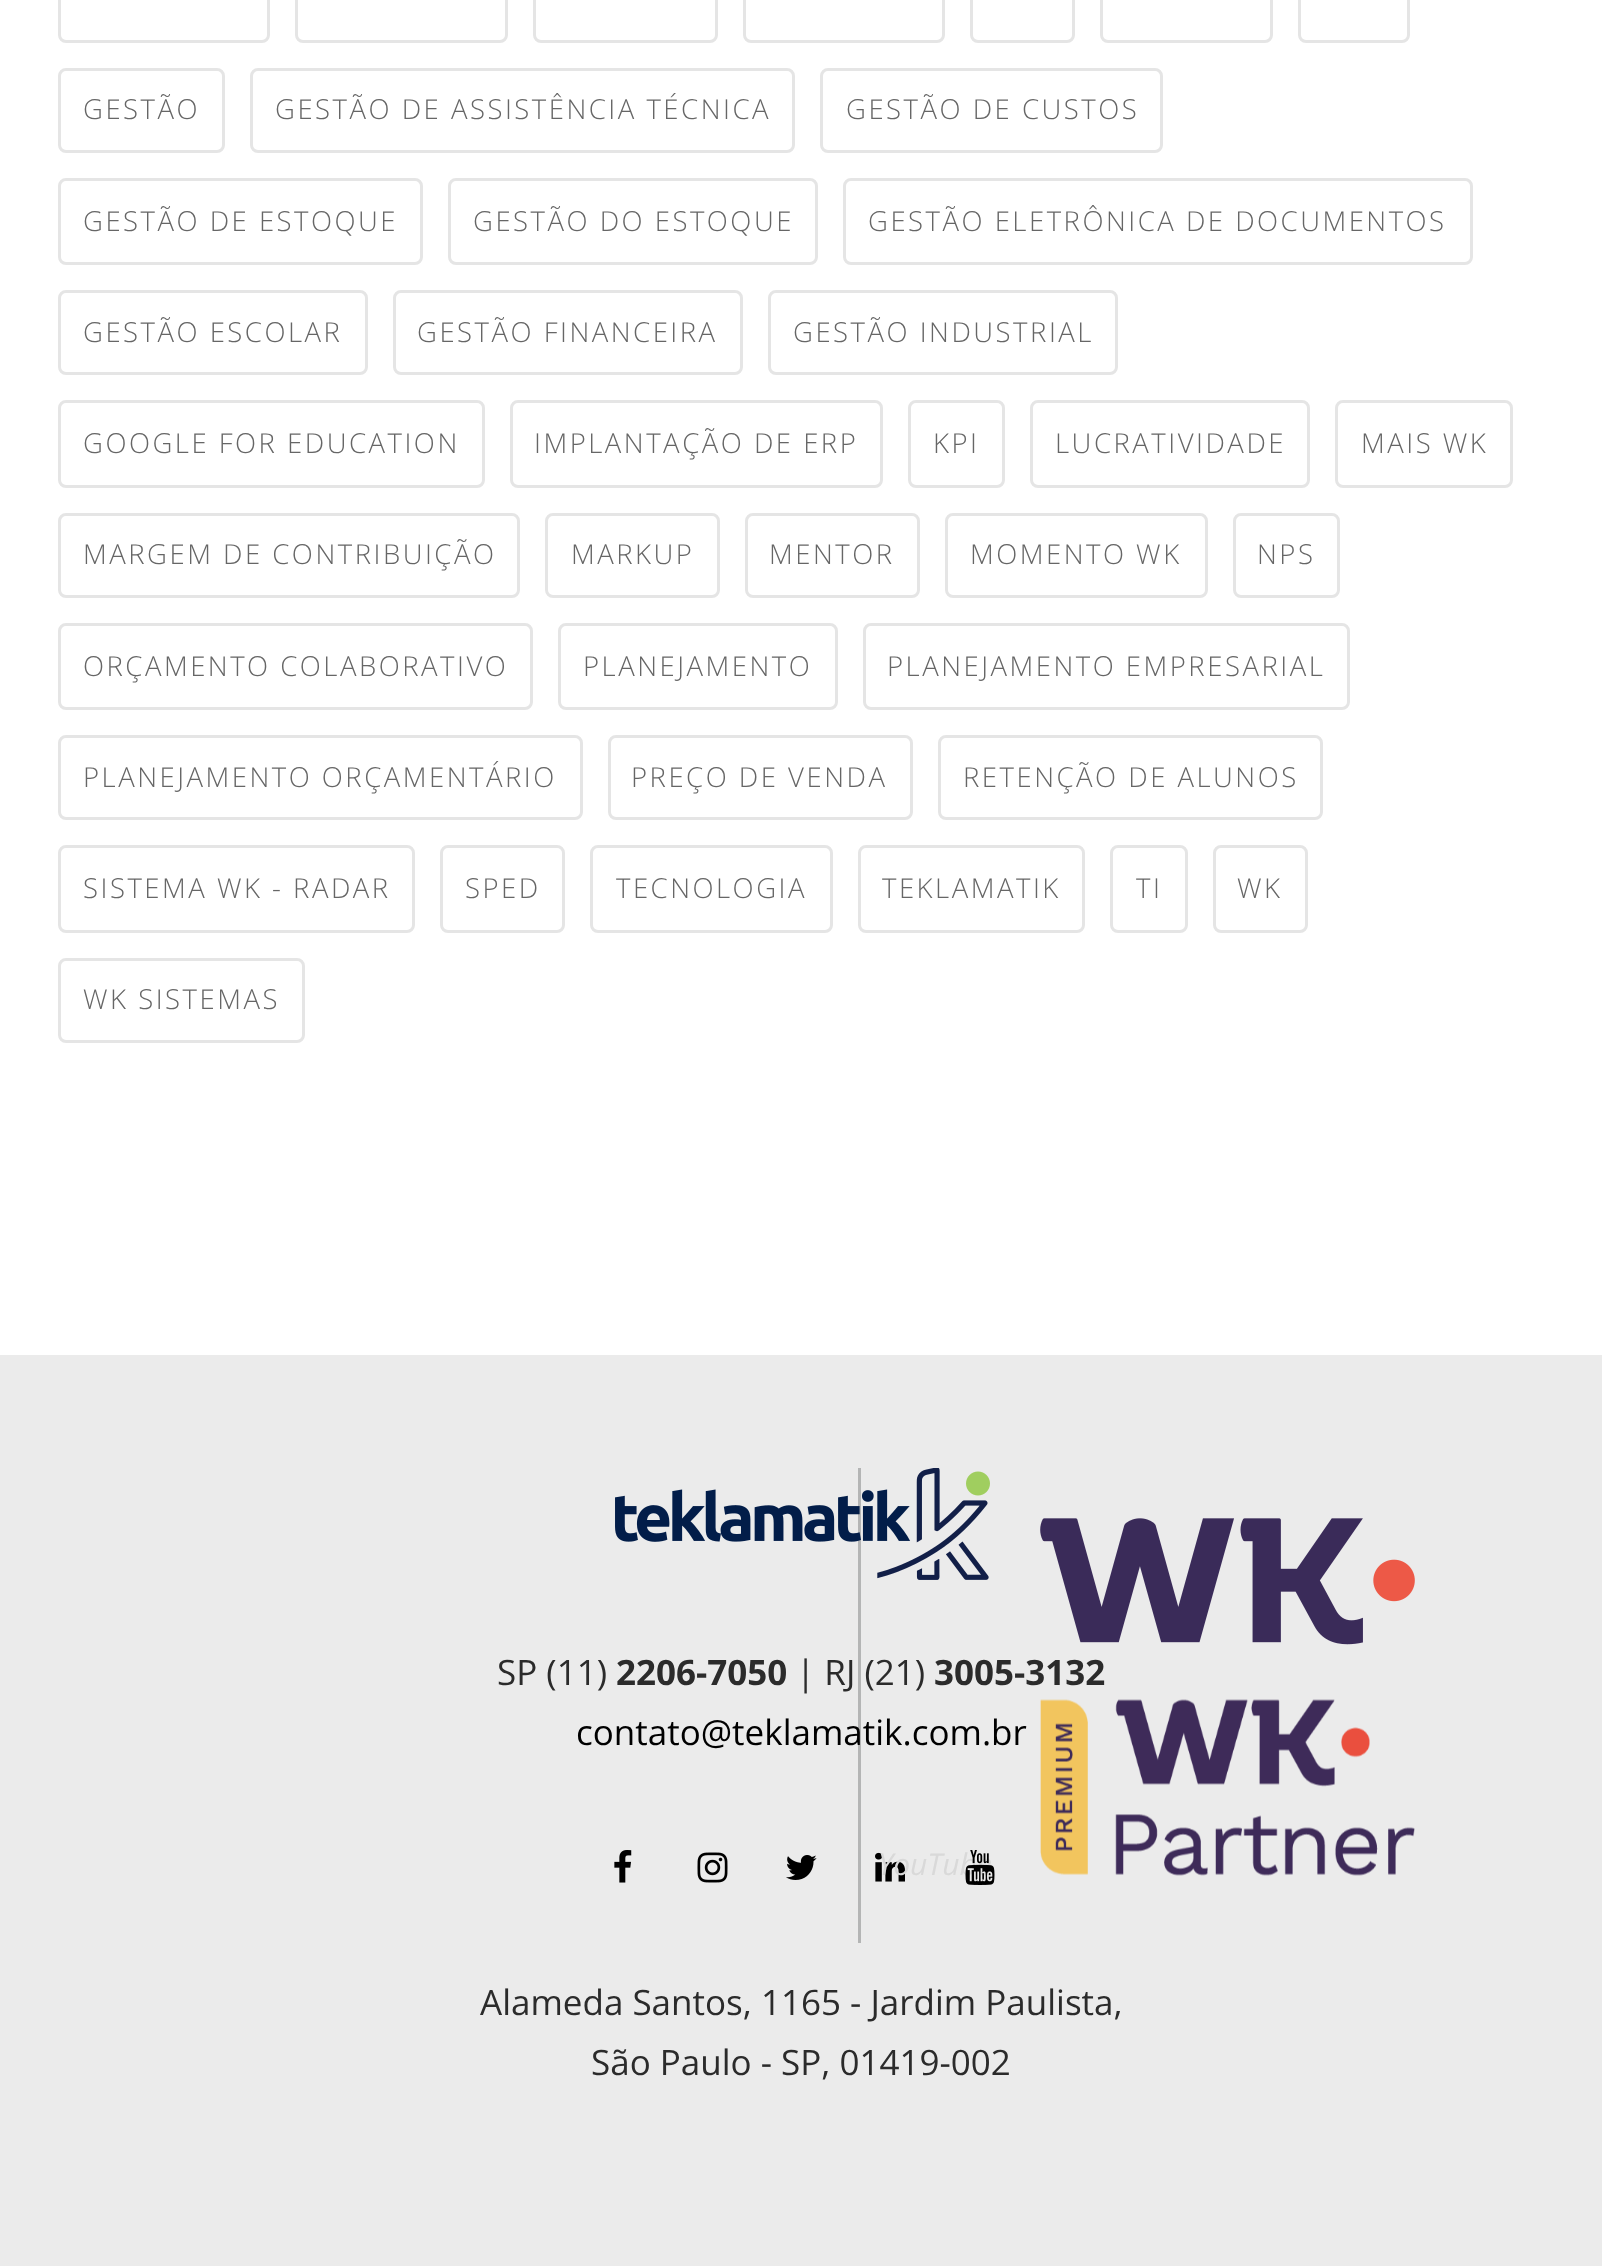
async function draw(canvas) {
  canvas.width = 1602;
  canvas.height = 2266;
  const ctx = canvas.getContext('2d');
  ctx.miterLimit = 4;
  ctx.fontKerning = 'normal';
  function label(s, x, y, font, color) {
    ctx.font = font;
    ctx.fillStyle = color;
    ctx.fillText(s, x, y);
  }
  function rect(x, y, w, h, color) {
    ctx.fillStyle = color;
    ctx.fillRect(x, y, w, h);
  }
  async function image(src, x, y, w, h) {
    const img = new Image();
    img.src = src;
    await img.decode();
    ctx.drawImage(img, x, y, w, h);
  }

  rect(0, 0, 1602, 2266, '#fff');
  ctx.beginPath();
  ctx.roundRect(59.5, -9.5, 209, 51, 6.5);
  ctx.strokeStyle = '#e5e5e5';
  ctx.lineWidth = 3;
  ctx.stroke();
  ctx.beginPath();
  ctx.roundRect(296.5, -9.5, 210, 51, 6.5);
  ctx.stroke();
  ctx.beginPath();
  ctx.roundRect(534.5, -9.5, 182, 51, 6.5);
  ctx.stroke();
  ctx.beginPath();
  ctx.roundRect(744.5, -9.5, 199, 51, 6.5);
  ctx.stroke();
  ctx.beginPath();
  ctx.roundRect(971.5, -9.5, 102, 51, 6.5);
  ctx.stroke();
  ctx.beginPath();
  ctx.roundRect(1101.5, -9.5, 170, 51, 6.5);
  ctx.stroke();
  ctx.beginPath();
  ctx.roundRect(1299.5, -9.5, 109, 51, 6.5);
  ctx.stroke();
  ctx.beginPath();
  ctx.roundRect(59.5, 69.5, 164, 82, 6.5);
  ctx.stroke();
  ctx.letterSpacing = '2.5px';
  label('GESTÃO', 83, 119, '300 27.5px Open Sans', '#666');
  ctx.beginPath();
  ctx.roundRect(251.5, 69.5, 542, 82, 6.5);
  ctx.stroke();
  label('GESTÃO DE ASSISTÊNCIA TÉCNICA', 275, 119, '300 27.5px Open Sans', '#666');
  ctx.beginPath();
  ctx.roundRect(821.5, 69.5, 340, 82, 6.5);
  ctx.stroke();
  label('GESTÃO DE CUSTOS', 846, 119, '300 27.5px Open Sans', '#666');
  ctx.beginPath();
  ctx.roundRect(59.5, 179.5, 362, 84, 6.5);
  ctx.stroke();
  label('GESTÃO DE ESTOQUE', 83, 231, '300 27.5px Open Sans', '#666');
  ctx.beginPath();
  ctx.roundRect(449.5, 179.5, 367, 84, 6.5);
  ctx.stroke();
  label('GESTÃO DO ESTOQUE', 473, 231, '300 27.5px Open Sans', '#666');
  ctx.beginPath();
  ctx.roundRect(844.5, 179.5, 627, 84, 6.5);
  ctx.stroke();
  label('GESTÃO ELETRÔNICA DE DOCUMENTOS', 868, 231, '300 27.5px Open Sans', '#666');
  ctx.beginPath();
  ctx.roundRect(59.5, 291.5, 307, 82, 6.5);
  ctx.stroke();
  label('GESTÃO ESCOLAR', 83, 342, '300 27.5px Open Sans', '#666');
  ctx.beginPath();
  ctx.roundRect(394.5, 291.5, 347, 82, 6.5);
  ctx.stroke();
  label('GESTÃO FINANCEIRA', 417, 342, '300 27.5px Open Sans', '#666');
  ctx.beginPath();
  ctx.roundRect(769.5, 291.5, 347, 82, 6.5);
  ctx.stroke();
  label('GESTÃO INDUSTRIAL', 793, 342, '300 27.5px Open Sans', '#666');
  ctx.beginPath();
  ctx.roundRect(59.5, 401.5, 424, 85, 6.5);
  ctx.stroke();
  label('GOOGLE FOR EDUCATION', 83, 453, '300 27.5px Open Sans', '#666');
  ctx.beginPath();
  ctx.roundRect(511.5, 401.5, 370, 85, 6.5);
  ctx.stroke();
  label('IMPLANTAÇÃO DE ERP', 534, 453, '300 27.5px Open Sans', '#666');
  ctx.beginPath();
  ctx.roundRect(909.5, 401.5, 94, 85, 6.5);
  ctx.stroke();
  label('KPI', 933, 453, '300 27.5px Open Sans', '#666');
  ctx.beginPath();
  ctx.roundRect(1031.5, 401.5, 277, 85, 6.5);
  ctx.stroke();
  label('LUCRATIVIDADE', 1055, 453, '300 27.5px Open Sans', '#666');
  ctx.beginPath();
  ctx.roundRect(1336.5, 401.5, 175, 85, 6.5);
  ctx.stroke();
  label('MAIS WK', 1361, 453, '300 27.5px Open Sans', '#666');
  ctx.beginPath();
  ctx.roundRect(59.5, 514.5, 459, 82, 6.5);
  ctx.stroke();
  label('MARGEM DE CONTRIBUIÇÃO', 83, 564, '300 27.5px Open Sans', '#666');
  ctx.beginPath();
  ctx.roundRect(546.5, 514.5, 172, 82, 6.5);
  ctx.stroke();
  label('MARKUP', 571, 564, '300 27.5px Open Sans', '#666');
  ctx.beginPath();
  ctx.roundRect(746.5, 514.5, 172, 82, 6.5);
  ctx.stroke();
  label('MENTOR', 769, 564, '300 27.5px Open Sans', '#666');
  ctx.beginPath();
  ctx.roundRect(946.5, 514.5, 260, 82, 6.5);
  ctx.stroke();
  label('MOMENTO WK', 970, 564, '300 27.5px Open Sans', '#666');
  ctx.beginPath();
  ctx.roundRect(1234.5, 514.5, 104, 82, 6.5);
  ctx.stroke();
  label('NPS', 1257, 564, '300 27.5px Open Sans', '#666');
  ctx.beginPath();
  ctx.roundRect(59.5, 624.5, 472, 84, 6.5);
  ctx.stroke();
  label('ORÇAMENTO COLABORATIVO', 83, 676, '300 27.5px Open Sans', '#666');
  ctx.beginPath();
  ctx.roundRect(559.5, 624.5, 277, 84, 6.5);
  ctx.stroke();
  label('PLANEJAMENTO', 583, 676, '300 27.5px Open Sans', '#666');
  ctx.beginPath();
  ctx.roundRect(864.5, 624.5, 484, 84, 6.5);
  ctx.stroke();
  label('PLANEJAMENTO EMPRESARIAL', 887, 676, '300 27.5px Open Sans', '#666');
  ctx.beginPath();
  ctx.roundRect(59.5, 736.5, 522, 82, 6.5);
  ctx.stroke();
  label('PLANEJAMENTO ORÇAMENTÁRIO', 83, 787, '300 27.5px Open Sans', '#666');
  ctx.beginPath();
  ctx.roundRect(609.5, 736.5, 302, 82, 6.5);
  ctx.stroke();
  label('PREÇO DE VENDA', 631, 787, '300 27.5px Open Sans', '#666');
  ctx.beginPath();
  ctx.roundRect(939.5, 736.5, 382, 82, 6.5);
  ctx.stroke();
  label('RETENÇÃO DE ALUNOS', 963, 787, '300 27.5px Open Sans', '#666');
  ctx.beginPath();
  ctx.roundRect(59.5, 846.5, 354, 85, 6.5);
  ctx.stroke();
  label('SISTEMA WK - RADAR', 83, 898, '300 27.5px Open Sans', '#666');
  ctx.beginPath();
  ctx.roundRect(441.5, 846.5, 122, 85, 6.5);
  ctx.stroke();
  label('SPED', 465, 898, '300 27.5px Open Sans', '#666');
  ctx.beginPath();
  ctx.roundRect(591.5, 846.5, 240, 85, 6.5);
  ctx.stroke();
  label('TECNOLOGIA', 616, 898, '300 27.5px Open Sans', '#666');
  ctx.beginPath();
  ctx.roundRect(859.5, 846.5, 224, 85, 6.5);
  ctx.stroke();
  label('TEKLAMATIK', 882, 898, '300 27.5px Open Sans', '#666');
  ctx.beginPath();
  ctx.roundRect(1111.5, 846.5, 75, 85, 6.5);
  ctx.stroke();
  label('TI', 1136, 898, '300 27.5px Open Sans', '#666');
  ctx.beginPath();
  ctx.roundRect(1214.5, 846.5, 92, 85, 6.5);
  ctx.stroke();
  label('WK', 1237, 898, '300 27.5px Open Sans', '#666');
  ctx.beginPath();
  ctx.roundRect(59.5, 959.5, 244, 82, 6.5);
  ctx.stroke();
  label('WK SISTEMAS', 83, 1009, '300 27.5px Open Sans', '#666');
  rect(0, 1355, 1602, 911, '#ebebeb');
  rect(858, 1468, 3, 475, '#b4b5b5');
  await image('assets/img1.png', 615, 1468, 375, 112);
  ctx.letterSpacing = '0px';
  label('SP (11)', 497, 1685, '35px Open Sans', '#2b2b2b');
  label('2206-7050', 616, 1685, 'bold 35px Open Sans', '#2b2b2b');
  label('| RJ (21)', 796, 1685, '35px Open Sans', '#2b2b2b');
  label('3005-3132', 934, 1685, 'bold 35px Open Sans', '#2b2b2b');
  label('contato@teklamatik.com.br', 576, 1745, '35px Open Sans', '#000');
  await image('assets/img2.png', 614, 1850, 18, 33);
  await image('assets/img3.png', 697, 1852, 31, 31);
  await image('assets/img4.png', 875, 1852, 30, 30);
  await image('assets/img5.png', 786, 1855, 31, 25);
  label('YouTube', 878, 1875, 'italic 30px Open Sans', '#d9d9d9');
  await image('assets/img6.png', 965, 1850, 30, 35);
  label('Alameda Santos, 1165 - Jardim Paulista,', 480, 2015, '35px Open Sans', '#2b2b2b');
  label('São Paulo - SP, 01419-002', 591, 2075, '35px Open Sans', '#2b2b2b');
  await image('assets/img7.png', 1040, 1518, 375, 127);
  await image('assets/img8.png', 1040, 1699, 375, 177);
}

draw(document.querySelector('canvas'));
